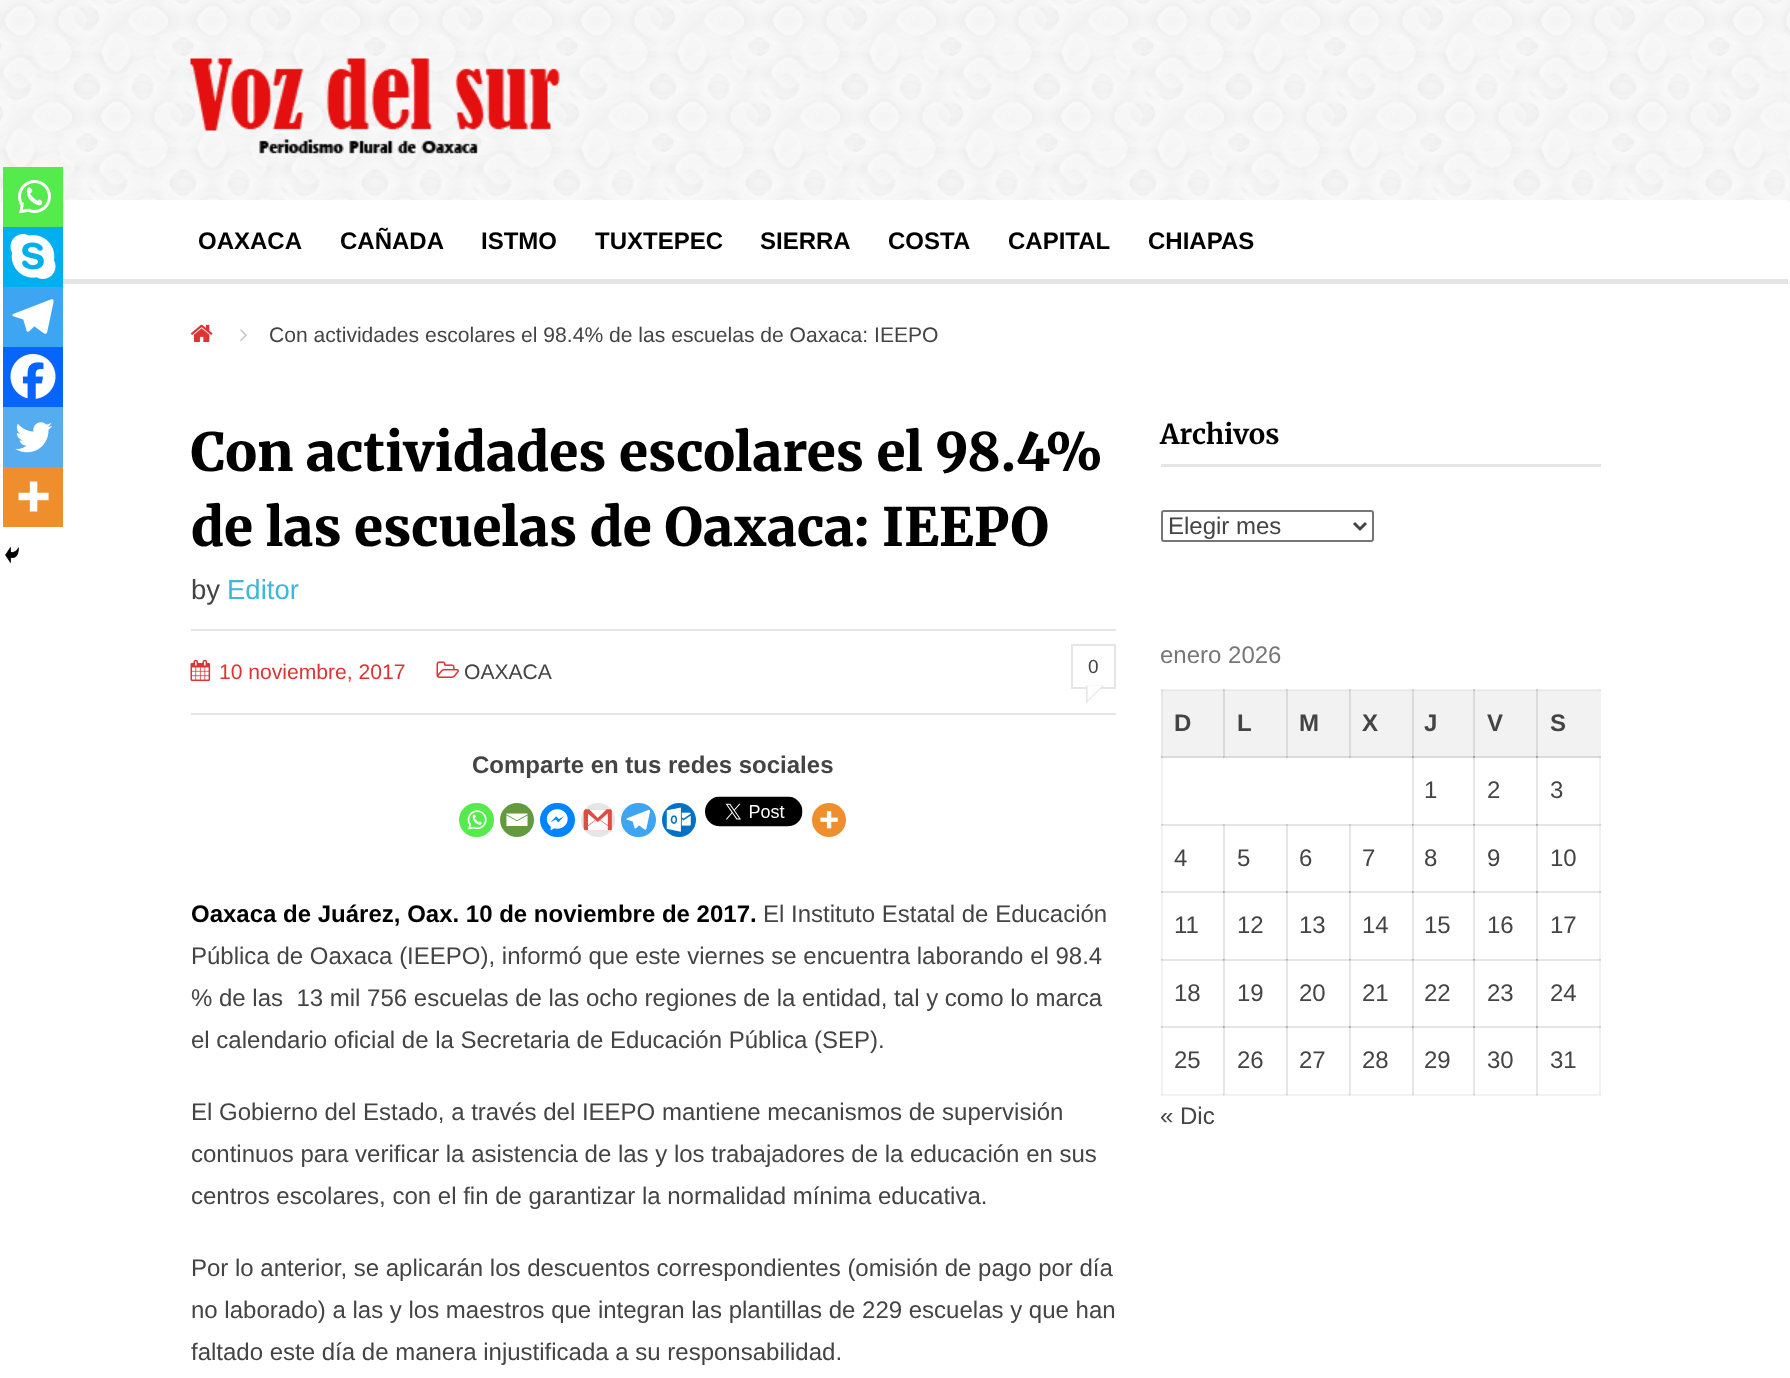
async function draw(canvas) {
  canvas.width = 1790;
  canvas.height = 1378;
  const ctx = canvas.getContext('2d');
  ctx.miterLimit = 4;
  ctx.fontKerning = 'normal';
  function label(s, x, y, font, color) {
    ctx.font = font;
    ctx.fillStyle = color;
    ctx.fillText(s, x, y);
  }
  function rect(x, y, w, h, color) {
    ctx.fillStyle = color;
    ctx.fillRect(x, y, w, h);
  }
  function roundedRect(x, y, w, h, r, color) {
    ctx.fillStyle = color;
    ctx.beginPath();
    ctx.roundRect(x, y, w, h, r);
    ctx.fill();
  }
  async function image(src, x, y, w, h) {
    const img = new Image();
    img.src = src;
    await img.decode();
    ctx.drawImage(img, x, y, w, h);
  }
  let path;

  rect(0, 0, 1790, 1378, '#fff');
  rect(1161, 689, 377, 1, '#f2f2f2');
  rect(1161, 689, 2, 1, '#e6e6e6');
  rect(1223, 689, 2, 1, '#dbdbdb');
  rect(1223, 689, 1, 2, '#d0d0d0');
  rect(1286, 689, 2, 1, '#dbdbdb');
  rect(1286, 689, 1, 2, '#d0d0d0');
  rect(1349, 689, 2, 1, '#dbdbdb');
  rect(1349, 689, 1, 2, '#d0d0d0');
  rect(1412, 689, 2, 1, '#dbdbdb');
  rect(1412, 689, 1, 2, '#d0d0d0');
  rect(1473, 689, 2, 1, '#d0d0d0');
  rect(1599, 689, 2, 339, '#f2f2f2');
  rect(1536, 689, 65, 1, '#f2f2f2');
  rect(1536, 689, 2, 1, '#d0d0d0');
  rect(1599, 689, 2, 2, '#e6e6e6');
  rect(1161, 756, 2, 339, '#f2f2f2');
  rect(1412, 756, 2, 69, '#e6e6e6');
  rect(1473, 756, 2, 69, '#e6e6e6');
  rect(1536, 756, 2, 69, '#e6e6e6');
  rect(1599, 756, 2, 2, '#d0d0d0');
  rect(1161, 824, 63, 2, '#e6e6e6');
  rect(1161, 825, 2, 1, '#dbdbdb');
  rect(1161, 824, 2, 1, '#d0d0d0');
  rect(1223, 824, 2, 69, '#e6e6e6');
  rect(1223, 824, 64, 2, '#e6e6e6');
  rect(1223, 824, 2, 2, '#d0d0d0');
  rect(1223, 824, 1, 2, '#c6c6c6');
  rect(1286, 824, 2, 69, '#e6e6e6');
  rect(1286, 824, 64, 2, '#e6e6e6');
  rect(1286, 824, 2, 2, '#d0d0d0');
  rect(1286, 824, 1, 2, '#c6c6c6');
  rect(1349, 824, 2, 69, '#e6e6e6');
  rect(1349, 824, 64, 2, '#e6e6e6');
  rect(1349, 824, 2, 2, '#d0d0d0');
  rect(1349, 824, 1, 2, '#c6c6c6');
  rect(1412, 824, 2, 69, '#e6e6e6');
  rect(1412, 824, 63, 2, '#e6e6e6');
  rect(1412, 825, 2, 1, '#d0d0d0');
  rect(1412, 824, 2, 1, '#bcbcbc');
  rect(1412, 824, 1, 2, '#bcbcbc');
  rect(1412, 824, 1, 1, '#aaa');
  rect(1473, 824, 2, 69, '#e6e6e6');
  rect(1473, 824, 65, 2, '#e6e6e6');
  rect(1473, 825, 2, 1, '#bcbcbc');
  rect(1473, 824, 2, 1, '#aaa');
  rect(1536, 824, 2, 69, '#e6e6e6');
  rect(1161, 891, 63, 2, '#e6e6e6');
  rect(1161, 891, 2, 2, '#d0d0d0');
  rect(1223, 891, 2, 69, '#e6e6e6');
  rect(1223, 891, 64, 2, '#e6e6e6');
  rect(1223, 891, 2, 2, '#bcbcbc');
  rect(1223, 891, 1, 2, '#aaa');
  rect(1286, 891, 2, 69, '#e6e6e6');
  rect(1286, 891, 64, 2, '#e6e6e6');
  rect(1286, 891, 2, 2, '#bcbcbc');
  rect(1286, 891, 1, 2, '#aaa');
  rect(1349, 891, 2, 69, '#e6e6e6');
  rect(1349, 891, 64, 2, '#e6e6e6');
  rect(1349, 891, 2, 2, '#bcbcbc');
  rect(1349, 891, 1, 2, '#aaa');
  rect(1412, 891, 2, 69, '#e6e6e6');
  rect(1412, 891, 63, 2, '#e6e6e6');
  rect(1412, 891, 2, 2, '#bcbcbc');
  rect(1412, 891, 1, 2, '#aaa');
  rect(1473, 891, 2, 69, '#e6e6e6');
  rect(1473, 891, 65, 2, '#e6e6e6');
  rect(1473, 891, 2, 2, '#aaa');
  rect(1536, 891, 2, 69, '#e6e6e6');
  rect(1161, 959, 63, 2, '#e6e6e6');
  rect(1161, 960, 2, 1, '#dbdbdb');
  rect(1161, 959, 2, 1, '#d0d0d0');
  rect(1223, 959, 2, 69, '#e6e6e6');
  rect(1223, 959, 64, 2, '#e6e6e6');
  rect(1223, 960, 2, 1, '#d0d0d0');
  rect(1223, 959, 2, 1, '#bcbcbc');
  rect(1223, 959, 1, 2, '#bcbcbc');
  rect(1223, 959, 1, 1, '#aaa');
  rect(1286, 959, 2, 69, '#e6e6e6');
  rect(1286, 959, 64, 2, '#e6e6e6');
  rect(1286, 960, 2, 1, '#d0d0d0');
  rect(1286, 959, 2, 1, '#bcbcbc');
  rect(1286, 959, 1, 2, '#bcbcbc');
  rect(1286, 959, 1, 1, '#aaa');
  rect(1349, 959, 2, 69, '#e6e6e6');
  rect(1349, 959, 64, 2, '#e6e6e6');
  rect(1349, 960, 2, 1, '#d0d0d0');
  rect(1349, 959, 2, 1, '#bcbcbc');
  rect(1349, 959, 1, 2, '#bcbcbc');
  rect(1349, 959, 1, 1, '#aaa');
  rect(1412, 959, 2, 69, '#e6e6e6');
  rect(1412, 959, 63, 2, '#e6e6e6');
  rect(1412, 960, 2, 1, '#d0d0d0');
  rect(1412, 959, 2, 1, '#bcbcbc');
  rect(1412, 959, 1, 2, '#bcbcbc');
  rect(1412, 959, 1, 1, '#aaa');
  rect(1473, 959, 2, 69, '#e6e6e6');
  rect(1473, 959, 65, 2, '#e6e6e6');
  rect(1473, 960, 2, 1, '#bcbcbc');
  rect(1473, 959, 2, 1, '#aaa');
  rect(1536, 959, 2, 69, '#e6e6e6');
  rect(1161, 1094, 63, 2, '#f2f2f2');
  rect(1161, 1094, 2, 1, '#e6e6e6');
  rect(1161, 1026, 63, 2, '#e6e6e6');
  rect(1161, 1026, 2, 2, '#d0d0d0');
  rect(1223, 1026, 2, 69, '#e6e6e6');
  rect(1223, 1094, 64, 2, '#f2f2f2');
  rect(1223, 1094, 1, 2, '#e6e6e6');
  rect(1223, 1094, 2, 1, '#dbdbdb');
  rect(1223, 1094, 1, 1, '#d0d0d0');
  rect(1223, 1026, 64, 2, '#e6e6e6');
  rect(1223, 1026, 2, 2, '#bcbcbc');
  rect(1223, 1026, 1, 2, '#aaa');
  rect(1286, 1026, 2, 69, '#e6e6e6');
  rect(1286, 1094, 64, 2, '#f2f2f2');
  rect(1286, 1094, 1, 2, '#e6e6e6');
  rect(1286, 1094, 2, 1, '#dbdbdb');
  rect(1286, 1094, 1, 1, '#d0d0d0');
  rect(1286, 1026, 64, 2, '#e6e6e6');
  rect(1286, 1026, 2, 2, '#bcbcbc');
  rect(1286, 1026, 1, 2, '#aaa');
  rect(1349, 1026, 2, 69, '#e6e6e6');
  rect(1349, 1094, 64, 2, '#f2f2f2');
  rect(1349, 1094, 1, 2, '#e6e6e6');
  rect(1349, 1094, 2, 1, '#dbdbdb');
  rect(1349, 1094, 1, 1, '#d0d0d0');
  rect(1349, 1026, 64, 2, '#e6e6e6');
  rect(1349, 1026, 2, 2, '#bcbcbc');
  rect(1349, 1026, 1, 2, '#aaa');
  rect(1412, 1026, 2, 69, '#e6e6e6');
  rect(1412, 1094, 63, 2, '#f2f2f2');
  rect(1412, 1094, 1, 2, '#e6e6e6');
  rect(1412, 1094, 2, 1, '#dbdbdb');
  rect(1412, 1094, 1, 1, '#d0d0d0');
  rect(1412, 1026, 63, 2, '#e6e6e6');
  rect(1412, 1026, 2, 2, '#bcbcbc');
  rect(1412, 1026, 1, 2, '#aaa');
  rect(1473, 1026, 2, 69, '#e6e6e6');
  rect(1473, 1094, 65, 2, '#f2f2f2');
  rect(1473, 1095, 2, 1, '#e6e6e6');
  rect(1473, 1094, 2, 1, '#d0d0d0');
  rect(1473, 1026, 65, 2, '#e6e6e6');
  rect(1473, 1026, 2, 2, '#aaa');
  rect(1536, 1026, 2, 69, '#e6e6e6');
  rect(1536, 1094, 65, 2, '#f2f2f2');
  rect(1536, 1095, 2, 1, '#e6e6e6');
  rect(1536, 1094, 2, 1, '#d0d0d0');
  rect(1599, 1026, 2, 69, '#f2f2f2');
  rect(1599, 1094, 2, 1, '#e6e6e6');
  rect(0, 283, 1790, 1, '#f8f8f8');
  await image('assets/img1.png', 0, 0, 1790, 284);
  await image('assets/img2.png', 190, 58, 370, 96);
  roundedRect(0, 200, 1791, 84, 6, '#fff');
  rect(63, 279, 1725, 5, '#e5e5e5');
  label('OAXACA', 198, 249, 'bold 24px Arimo', '#000');
  label('CAÑADA', 340, 249, 'bold 24px Arimo', '#000');
  label('ISTMO', 481, 249, 'bold 24px Arimo', '#000');
  label('TUXTEPEC', 595, 249, 'bold 24px Arimo', '#000');
  label('SIERRA', 760, 249, 'bold 24px Arimo', '#000');
  label('COSTA', 888, 249, 'bold 24px Arimo', '#000');
  label('CAPITAL', 1008, 249, 'bold 24px Arimo', '#000');
  label('CHIAPAS', 1148, 249, 'bold 24px Arimo', '#000');
  await image('assets/img3.png', 190, 324, 23, 18);
  await image('assets/img4.png', 240, 329, 7, 12);
  label('Con actividades escolares el 98.4% de las escuelas de Oaxaca: IEEPO', 269, 342, '21.1px Arimo', '#444');
  label('Con actividades escolares el 98.4%', 191, 471, '900 52.75px Merriweather', '#000');
  label('de las escuelas de Oaxaca: IEEPO', 191, 546, '900 52.75px Merriweather', '#000');
  label('by', 191, 599, '27.5px Arimo', '#444');
  label('Editor', 227, 599, '27.5px Arimo', '#41b7d8');
  rect(191, 629, 925, 2, '#e5e5e5');
  rect(191, 713, 925, 2, '#e5e5e5');
  await image('assets/img5.png', 190, 659, 21, 22);
  label('10 noviembre, 2017', 219, 679, '21.1px Arimo', '#d33');
  await image('assets/img6.png', 436, 661, 23, 17);
  label('OAXACA', 464, 679, '21.1px Arimo', '#444');
  ctx.strokeStyle = '#e5e5e5';
  ctx.lineWidth = 2;
  ctx.strokeRect(1072, 645, 43, 43);
  label('0', 1088, 673, '19px Arimo', '#444');
  ctx.fillStyle = '#e5e5e5';
  path = new Path2D('M1086 685.5H1104L1086 703.5Z');
  ctx.fill(path);
  ctx.fillStyle = '#fff';
  path = new Path2D('M1087.5 685.5H1102.5L1087.5 700.5Z');
  ctx.fill(path);
  rect(3, 167, 60, 60, '#55eb4c');
  await image('assets/img7.png', 18, 180, 33, 34);
  rect(3, 227, 60, 60, '#00aff0');
  await image('assets/img8.png', 10, 234, 46, 45);
  rect(3, 287, 60, 60, '#3da5f1');
  await image('assets/img9.png', 12, 299, 42, 35);
  rect(3, 347, 60, 60, '#0765fe');
  await image('assets/img10.png', 10, 354, 46, 45);
  rect(3, 407, 60, 60, '#55acee');
  await image('assets/img11.png', 15, 422, 37, 31);
  rect(3, 467, 60, 60, '#ee8e2d');
  await image('assets/img12.png', 18, 481, 31, 31);
  await image('assets/img13.png', 5, 546, 14, 18);
  label('Comparte en tus redes sociales', 472, 773, 'bold 24px Arimo', '#444');
  roundedRect(459, 803, 35, 34, 17, '#55eb4c');
  await image('assets/img14.png', 467, 810, 20, 20);
  ctx.fillStyle = '#649a3f';
  ctx.beginPath();
  ctx.arc(517, 820, 17, 0, 2 * Math.PI);
  ctx.fill();
  await image('assets/img15.png', 506, 813, 22, 13);
  roundedRect(540, 803, 35, 34, 17, '#0084ff');
  await image('assets/img16.png', 546, 809, 22, 22);
  ctx.fillStyle = '#e5e5e5';
  ctx.beginPath();
  ctx.arc(598, 820, 17, 0, 2 * Math.PI);
  ctx.fill();
  await image('assets/img17.png', 583, 809, 29, 22);
  roundedRect(621, 803, 35, 34, 17, '#3da5f1');
  await image('assets/img18.png', 626, 809, 25, 21);
  ctx.fillStyle = '#0072c6';
  ctx.beginPath();
  ctx.arc(679, 820, 17, 0, 2 * Math.PI);
  ctx.fill();
  await image('assets/img19.png', 666, 807, 25, 25);
  await image('assets/img20.png', 705, 796, 98, 31);
  ctx.fillStyle = '#ee8e2d';
  ctx.beginPath();
  ctx.arc(829, 820, 17, 0, 2 * Math.PI);
  ctx.fill();
  await image('assets/img21.png', 820, 811, 18, 18);
  label('Oaxaca de Juárez, Oax. 10 de noviembre de 2017.', 191, 922, 'bold 24px Arimo', '#000');
  label('El Instituto Estatal de Educación', 763, 922, '24px Arimo', '#444');
  label('Pública de Oaxaca (IEEPO), informó que este viernes se encuentra laborando el 98.4', 191, 964, '24px Arimo', '#444');
  label('% de las  13 mil 756 escuelas de las ocho regiones de la entidad, tal y como lo marca', 191, 1006, '24px Arimo', '#444');
  label('el calendario oficial de la Secretaria de Educación Pública (SEP).', 191, 1048, '24px Arimo', '#444');
  label('El Gobierno del Estado, a través del IEEPO mantiene mecanismos de supervisión', 191, 1120, '24px Arimo', '#444');
  label('continuos para verificar la asistencia de las y los trabajadores de la educación en sus', 191, 1162, '24px Arimo', '#444');
  label('centros escolares, con el fin de garantizar la normalidad mínima educativa.', 191, 1204, '24px Arimo', '#444');
  label('Por lo anterior, se aplicarán los descuentos correspondientes (omisión de pago por día', 191, 1276, '24px Arimo', '#444');
  label('no laborado) a las y los maestros que integran las plantillas de 229 escuelas y que han', 191, 1318, '24px Arimo', '#444');
  label('faltado este día de manera injustificada a su responsabilidad.', 191, 1360, '24px Arimo', '#444');
  rect(1161, 464, 440, 3, '#e5e5e5');
  label('Archivos', 1160, 444, 'bold 27.5px Merriweather', '#000');
  ctx.beginPath();
  ctx.roundRect(1162, 511, 211, 30, 2);
  ctx.strokeStyle = '#767676';
  ctx.stroke();
  path = new Path2D('M1354 523L1360 529L1366 523');
  ctx.strokeStyle = '#444';
  ctx.lineWidth = 3;
  ctx.stroke(path);
  label('Elegir mes', 1168, 534, '24px Arimo', '#444');
  label('enero 2026', 1160, 663, '24px Arimo', '#777');
  rect(1163, 691, 60, 65, '#f2f2f2');
  rect(1161, 690, 2, 68, '#e6e6e6');
  rect(1161, 690, 63, 1, '#e6e6e6');
  rect(1161, 690, 2, 1, '#dbdbdb');
  rect(1223, 690, 2, 68, '#dbdbdb');
  rect(1223, 690, 1, 1, '#c6c6c6');
  rect(1161, 756, 63, 2, '#dbdbdb');
  rect(1223, 756, 1, 2, '#bcbcbc');
  rect(1161, 756, 2, 2, '#c6c6c6');
  label('D', 1174, 731, 'bold 24px Arimo', '#444');
  rect(1225, 691, 61, 65, '#f2f2f2');
  rect(1224, 690, 63, 1, '#e6e6e6');
  rect(1224, 690, 1, 1, '#d0d0d0');
  rect(1286, 690, 2, 68, '#dbdbdb');
  rect(1286, 690, 1, 1, '#c6c6c6');
  rect(1224, 756, 125, 2, '#dbdbdb');
  rect(1224, 756, 1, 2, '#c6c6c6');
  rect(1286, 756, 1, 2, '#bcbcbc');
  label('L', 1237, 731, 'bold 24px Arimo', '#444');
  rect(1288, 691, 61, 65, '#f2f2f2');
  rect(1287, 690, 62, 1, '#e6e6e6');
  rect(1287, 690, 1, 1, '#d0d0d0');
  rect(1287, 756, 1, 2, '#c6c6c6');
  label('M', 1299, 731, 'bold 24px Arimo', '#444');
  rect(1351, 691, 61, 65, '#f2f2f2');
  rect(1349, 690, 2, 68, '#dbdbdb');
  rect(1349, 690, 63, 1, '#e6e6e6');
  rect(1349, 690, 2, 1, '#d0d0d0');
  rect(1349, 690, 1, 1, '#c6c6c6');
  rect(1349, 756, 63, 2, '#dbdbdb');
  rect(1349, 756, 2, 2, '#c6c6c6');
  rect(1349, 756, 1, 2, '#bcbcbc');
  label('X', 1362, 731, 'bold 24px Arimo', '#444');
  rect(1414, 691, 59, 65, '#f2f2f2');
  rect(1412, 690, 2, 68, '#dbdbdb');
  rect(1412, 690, 187, 1, '#e6e6e6');
  rect(1412, 690, 2, 1, '#d0d0d0');
  rect(1412, 690, 1, 1, '#c6c6c6');
  rect(1473, 690, 2, 68, '#dbdbdb');
  rect(1473, 690, 2, 1, '#c6c6c6');
  rect(1412, 756, 63, 2, '#dbdbdb');
  rect(1412, 756, 2, 2, '#b3b3b3');
  rect(1412, 756, 1, 2, '#a2a2a2');
  rect(1473, 756, 2, 2, '#a2a2a2');
  label('J', 1424, 731, 'bold 24px Arimo', '#444');
  rect(1475, 691, 61, 65, '#f2f2f2');
  rect(1536, 690, 2, 68, '#dbdbdb');
  rect(1536, 690, 2, 1, '#c6c6c6');
  rect(1475, 756, 124, 2, '#dbdbdb');
  rect(1536, 756, 2, 2, '#a2a2a2');
  label('V', 1487, 731, 'bold 24px Arimo', '#444');
  rect(1538, 691, 61, 65, '#f2f2f2');
  label('S', 1550, 731, 'bold 24px Arimo', '#444');
  label('1', 1424, 798, '24px Arimo', '#444');
  label('2', 1487, 798, '24px Arimo', '#444');
  label('3', 1550, 798, '24px Arimo', '#444');
  label('4', 1174, 866, '24px Arimo', '#444');
  label('5', 1237, 866, '24px Arimo', '#444');
  label('6', 1299, 866, '24px Arimo', '#444');
  label('7', 1362, 866, '24px Arimo', '#444');
  label('8', 1424, 866, '24px Arimo', '#444');
  label('9', 1487, 866, '24px Arimo', '#444');
  rect(1536, 824, 65, 2, '#e6e6e6');
  rect(1536, 825, 2, 1, '#bcbcbc');
  rect(1536, 824, 2, 1, '#aaa');
  rect(1599, 825, 2, 1, '#dbdbdb');
  rect(1599, 824, 2, 1, '#d0d0d0');
  label('10', 1550, 866, '24px Arimo', '#444');
  label('11', 1174, 933, '24px Arimo', '#444');
  label('12', 1237, 933, '24px Arimo', '#444');
  label('13', 1299, 933, '24px Arimo', '#444');
  label('14', 1362, 933, '24px Arimo', '#444');
  label('15', 1424, 933, '24px Arimo', '#444');
  label('16', 1487, 933, '24px Arimo', '#444');
  rect(1536, 891, 65, 2, '#e6e6e6');
  rect(1536, 891, 2, 2, '#aaa');
  rect(1599, 891, 2, 2, '#d0d0d0');
  label('17', 1550, 933, '24px Arimo', '#444');
  label('18', 1174, 1001, '24px Arimo', '#444');
  label('19', 1237, 1001, '24px Arimo', '#444');
  label('20', 1299, 1001, '24px Arimo', '#444');
  label('21', 1362, 1001, '24px Arimo', '#444');
  label('22', 1424, 1001, '24px Arimo', '#444');
  label('23', 1487, 1001, '24px Arimo', '#444');
  rect(1536, 959, 65, 2, '#e6e6e6');
  rect(1536, 960, 2, 1, '#bcbcbc');
  rect(1536, 959, 2, 1, '#aaa');
  rect(1599, 960, 2, 1, '#dbdbdb');
  rect(1599, 959, 2, 1, '#d0d0d0');
  label('24', 1550, 1001, '24px Arimo', '#444');
  label('25', 1174, 1068, '24px Arimo', '#444');
  label('26', 1237, 1068, '24px Arimo', '#444');
  label('27', 1299, 1068, '24px Arimo', '#444');
  label('28', 1362, 1068, '24px Arimo', '#444');
  label('29', 1424, 1068, '24px Arimo', '#444');
  label('30', 1487, 1068, '24px Arimo', '#444');
  rect(1536, 1026, 65, 2, '#e6e6e6');
  rect(1536, 1026, 2, 2, '#aaa');
  rect(1599, 1026, 2, 2, '#d0d0d0');
  label('31', 1550, 1068, '24px Arimo', '#444');
  label('« Dic', 1160, 1124, '24px Arimo', '#444');
}

draw(document.querySelector('canvas'));
